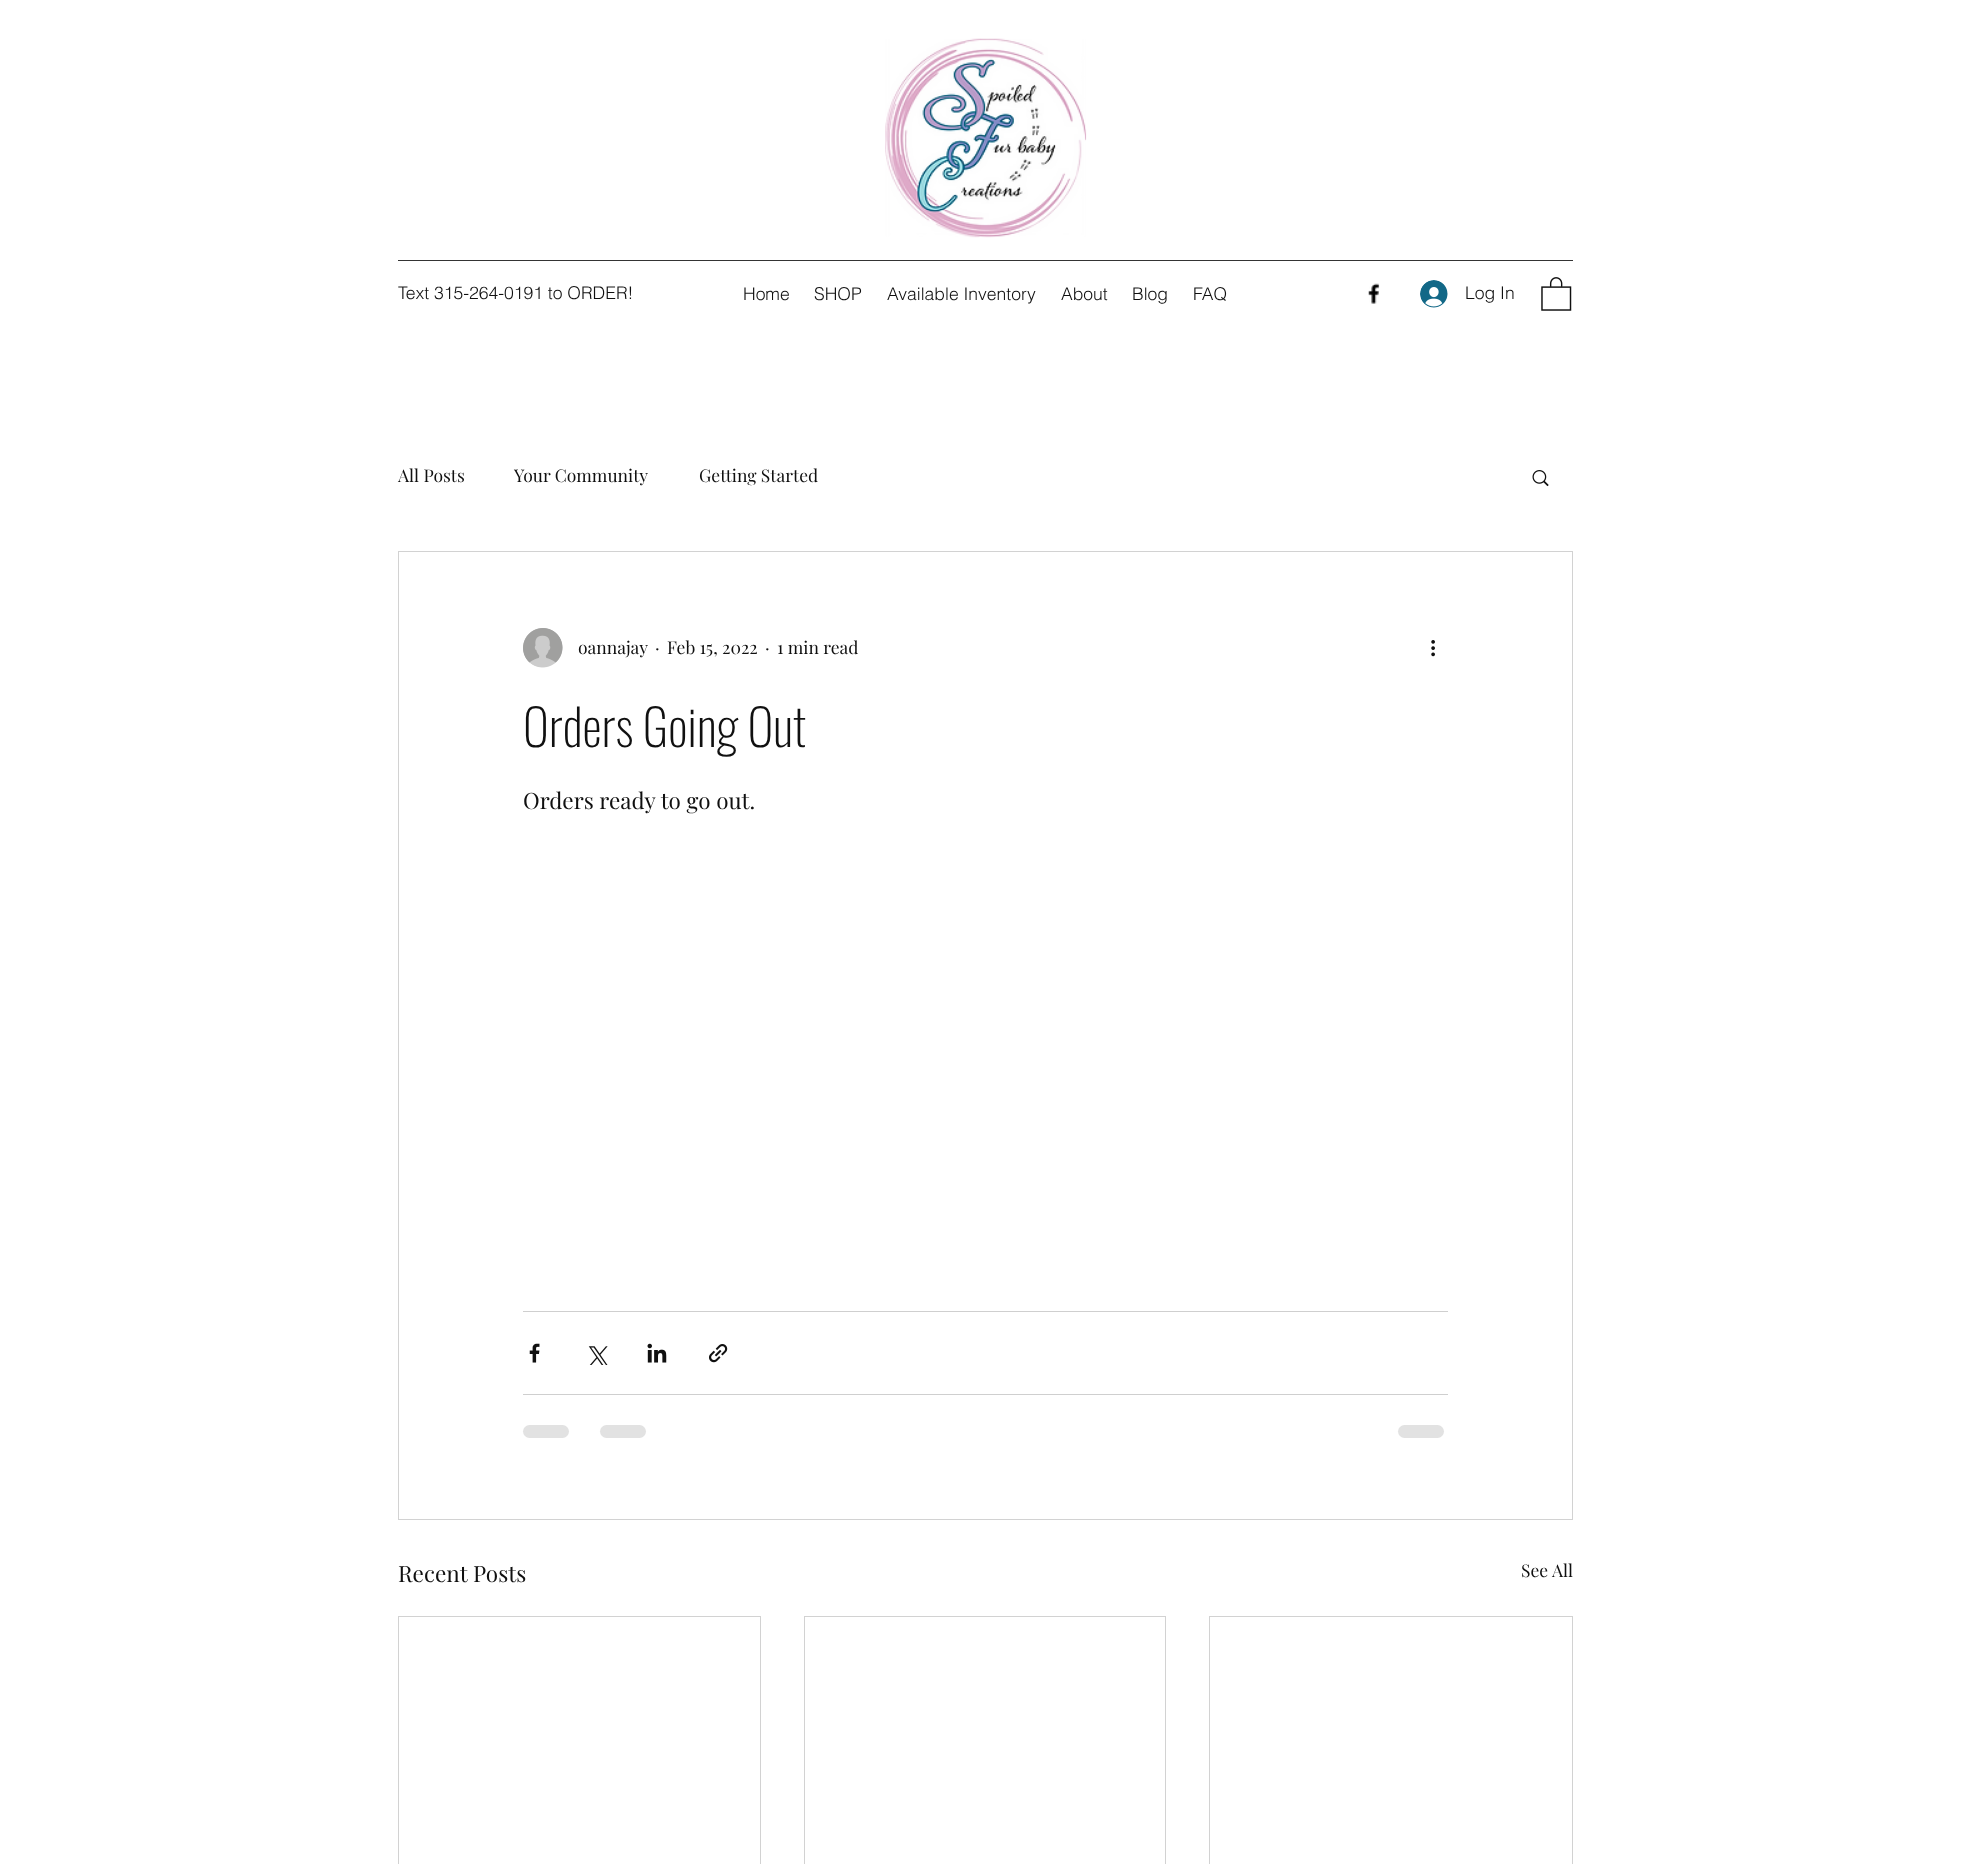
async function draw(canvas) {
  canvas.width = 1969;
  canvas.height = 1864;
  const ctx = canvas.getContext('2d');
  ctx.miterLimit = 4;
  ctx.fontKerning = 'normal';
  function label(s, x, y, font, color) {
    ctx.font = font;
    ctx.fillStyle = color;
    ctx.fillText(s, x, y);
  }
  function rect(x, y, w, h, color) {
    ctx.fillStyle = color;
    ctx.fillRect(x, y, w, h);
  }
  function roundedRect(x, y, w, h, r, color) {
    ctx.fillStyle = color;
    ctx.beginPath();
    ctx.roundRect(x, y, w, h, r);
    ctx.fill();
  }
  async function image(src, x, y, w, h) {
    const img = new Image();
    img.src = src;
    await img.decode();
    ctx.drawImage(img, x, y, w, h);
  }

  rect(0, 0, 1969, 1864, '#fff');
  await image('assets/img1.png', 885, 38, 202, 200);
  rect(398, 260, 1175, 1, '#343434');
  label('Text 315-264-0191 to ORDER!', 398, 299, '300 17.5px helvetica', '#101010');
  label('Home', 743, 300, '300 17.5px helvetica', '#101010');
  label('SHOP', 814, 300, '300 17.5px helvetica', '#101010');
  label('Available Inventory', 887, 300, '300 17.5px helvetica', '#101010');
  label('About', 1061, 300, '300 17.5px helvetica', '#101010');
  label('Blog', 1132, 300, '300 17.5px helvetica', '#101010');
  label('FAQ', 1193, 300, '300 17.5px helvetica', '#101010');
  await image('assets/img2.png', 1368, 283, 12, 21);
  await image('assets/img3.png', 1420, 280, 28, 28);
  label('Log In', 1465, 299, '300 17.5px helvetica', '#101010');
  await image('assets/img4.png', 1541, 277, 31, 34);
  label('All Posts', 398, 482, '17.5px Playfair Display', '#101010');
  label('Your Community', 514, 482, '17.5px Playfair Display', '#101010');
  label('Getting Started', 699, 482, '17.5px Playfair Display', '#101010');
  await image('assets/img5.png', 1532, 470, 17, 17);
  ctx.strokeStyle = '#d2d2d2';
  ctx.strokeRect(398.5, 551.5, 1174, 968);
  await image('assets/img6.png', 523, 628, 40, 40);
  label('oannajay', 578, 654, '17.5px Playfair Display', '#101010');
  label('·', 655, 654, '17.5px Playfair Display', '#101010');
  label('Feb 15, 2022', 667, 654, '17.5px Playfair Display', '#101010');
  label('·', 765, 654, '17.5px Playfair Display', '#101010');
  label('1 min read', 777, 654, '17.5px Playfair Display', '#101010');
  await image('assets/img7.png', 1431, 640, 4, 17);
  label('Orders Going Out', 523, 747, '200 50px Oswald', '#101010');
  label('Orders ready to go out.', 523, 809, '22.5px Playfair Display', '#101010');
  rect(523, 1311, 925, 1, '#cfcfcf');
  await image('assets/img8.png', 529, 1343, 11, 20);
  await image('assets/img9.png', 588, 1346, 20, 19);
  await image('assets/img10.png', 647, 1343, 20, 20);
  await image('assets/img11.png', 709, 1344, 19, 19);
  rect(523, 1394, 925, 1, '#cfcfcf');
  roundedRect(523, 1425, 46, 13, 6.5, '#e2e2e2');
  roundedRect(600, 1425, 46, 13, 6.5, '#e2e2e2');
  roundedRect(1398, 1425, 46, 13, 6.5, '#e2e2e2');
  label('Recent Posts', 398, 1582, '22.5px Playfair Display', '#101010');
  label('See All', 1521, 1577, '17.5px Playfair Display', '#101010');
  ctx.strokeRect(398.5, 1616.5, 362, 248);
  ctx.strokeRect(804.5, 1616.5, 361, 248);
  ctx.strokeRect(1209.5, 1616.5, 363, 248);
}

draw(document.querySelector('canvas'));
